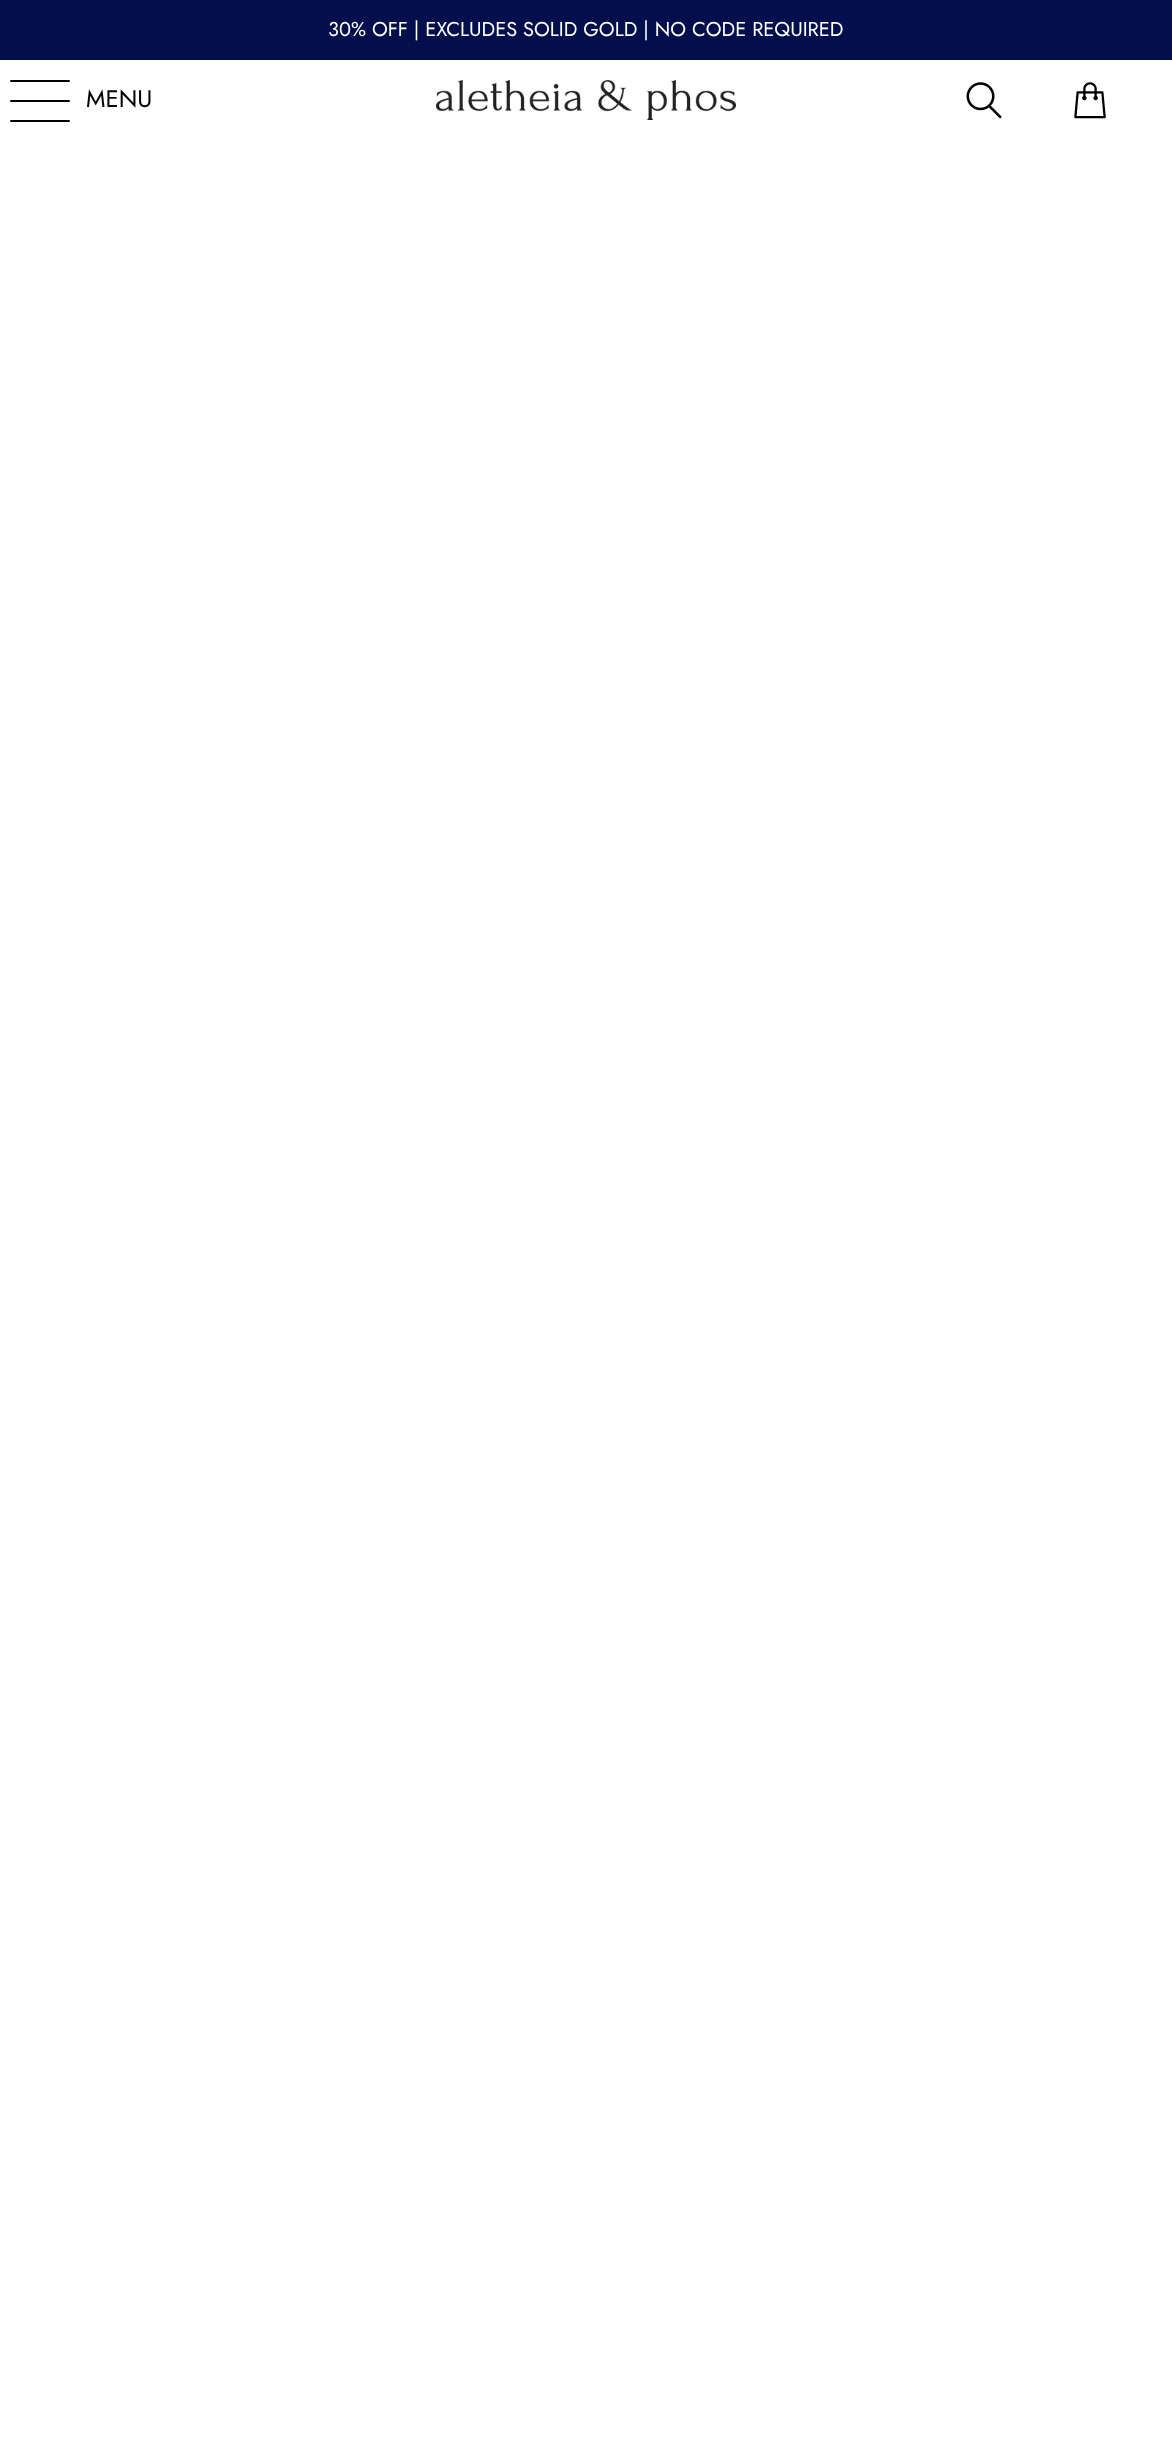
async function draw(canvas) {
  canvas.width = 1172;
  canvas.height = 2463;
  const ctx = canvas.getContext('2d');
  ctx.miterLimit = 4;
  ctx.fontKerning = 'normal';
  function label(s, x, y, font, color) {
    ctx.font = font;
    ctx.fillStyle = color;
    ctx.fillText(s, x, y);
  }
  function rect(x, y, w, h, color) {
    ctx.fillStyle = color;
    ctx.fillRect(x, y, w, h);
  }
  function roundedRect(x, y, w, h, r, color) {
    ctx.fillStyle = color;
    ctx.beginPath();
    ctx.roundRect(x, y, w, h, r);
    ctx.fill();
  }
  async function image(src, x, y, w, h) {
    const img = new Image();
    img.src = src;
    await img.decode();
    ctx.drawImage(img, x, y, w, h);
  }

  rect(0, 0, 1172, 2463, '#fff');
  rect(0, 0, 1172, 60, '#020f4c');
  label('30% OFF | EXCLUDES SOLID GOLD | NO CODE REQUIRED', 328, 36, '20px Jost', '#fff');
  roundedRect(10, 80, 60, 2, 1, '#000');
  roundedRect(10, 100, 60, 2, 1, '#000');
  roundedRect(10, 120, 60, 2, 1, '#000');
  label('MENU', 86, 107, '24px Jost', '#000');
  await image('assets/img1.png', 436, 80, 300, 40);
  await image('assets/img2.png', 966, 82, 36, 37);
  await image('assets/img3.png', 1074, 82, 32, 37);
}

draw(document.querySelector('canvas'));
